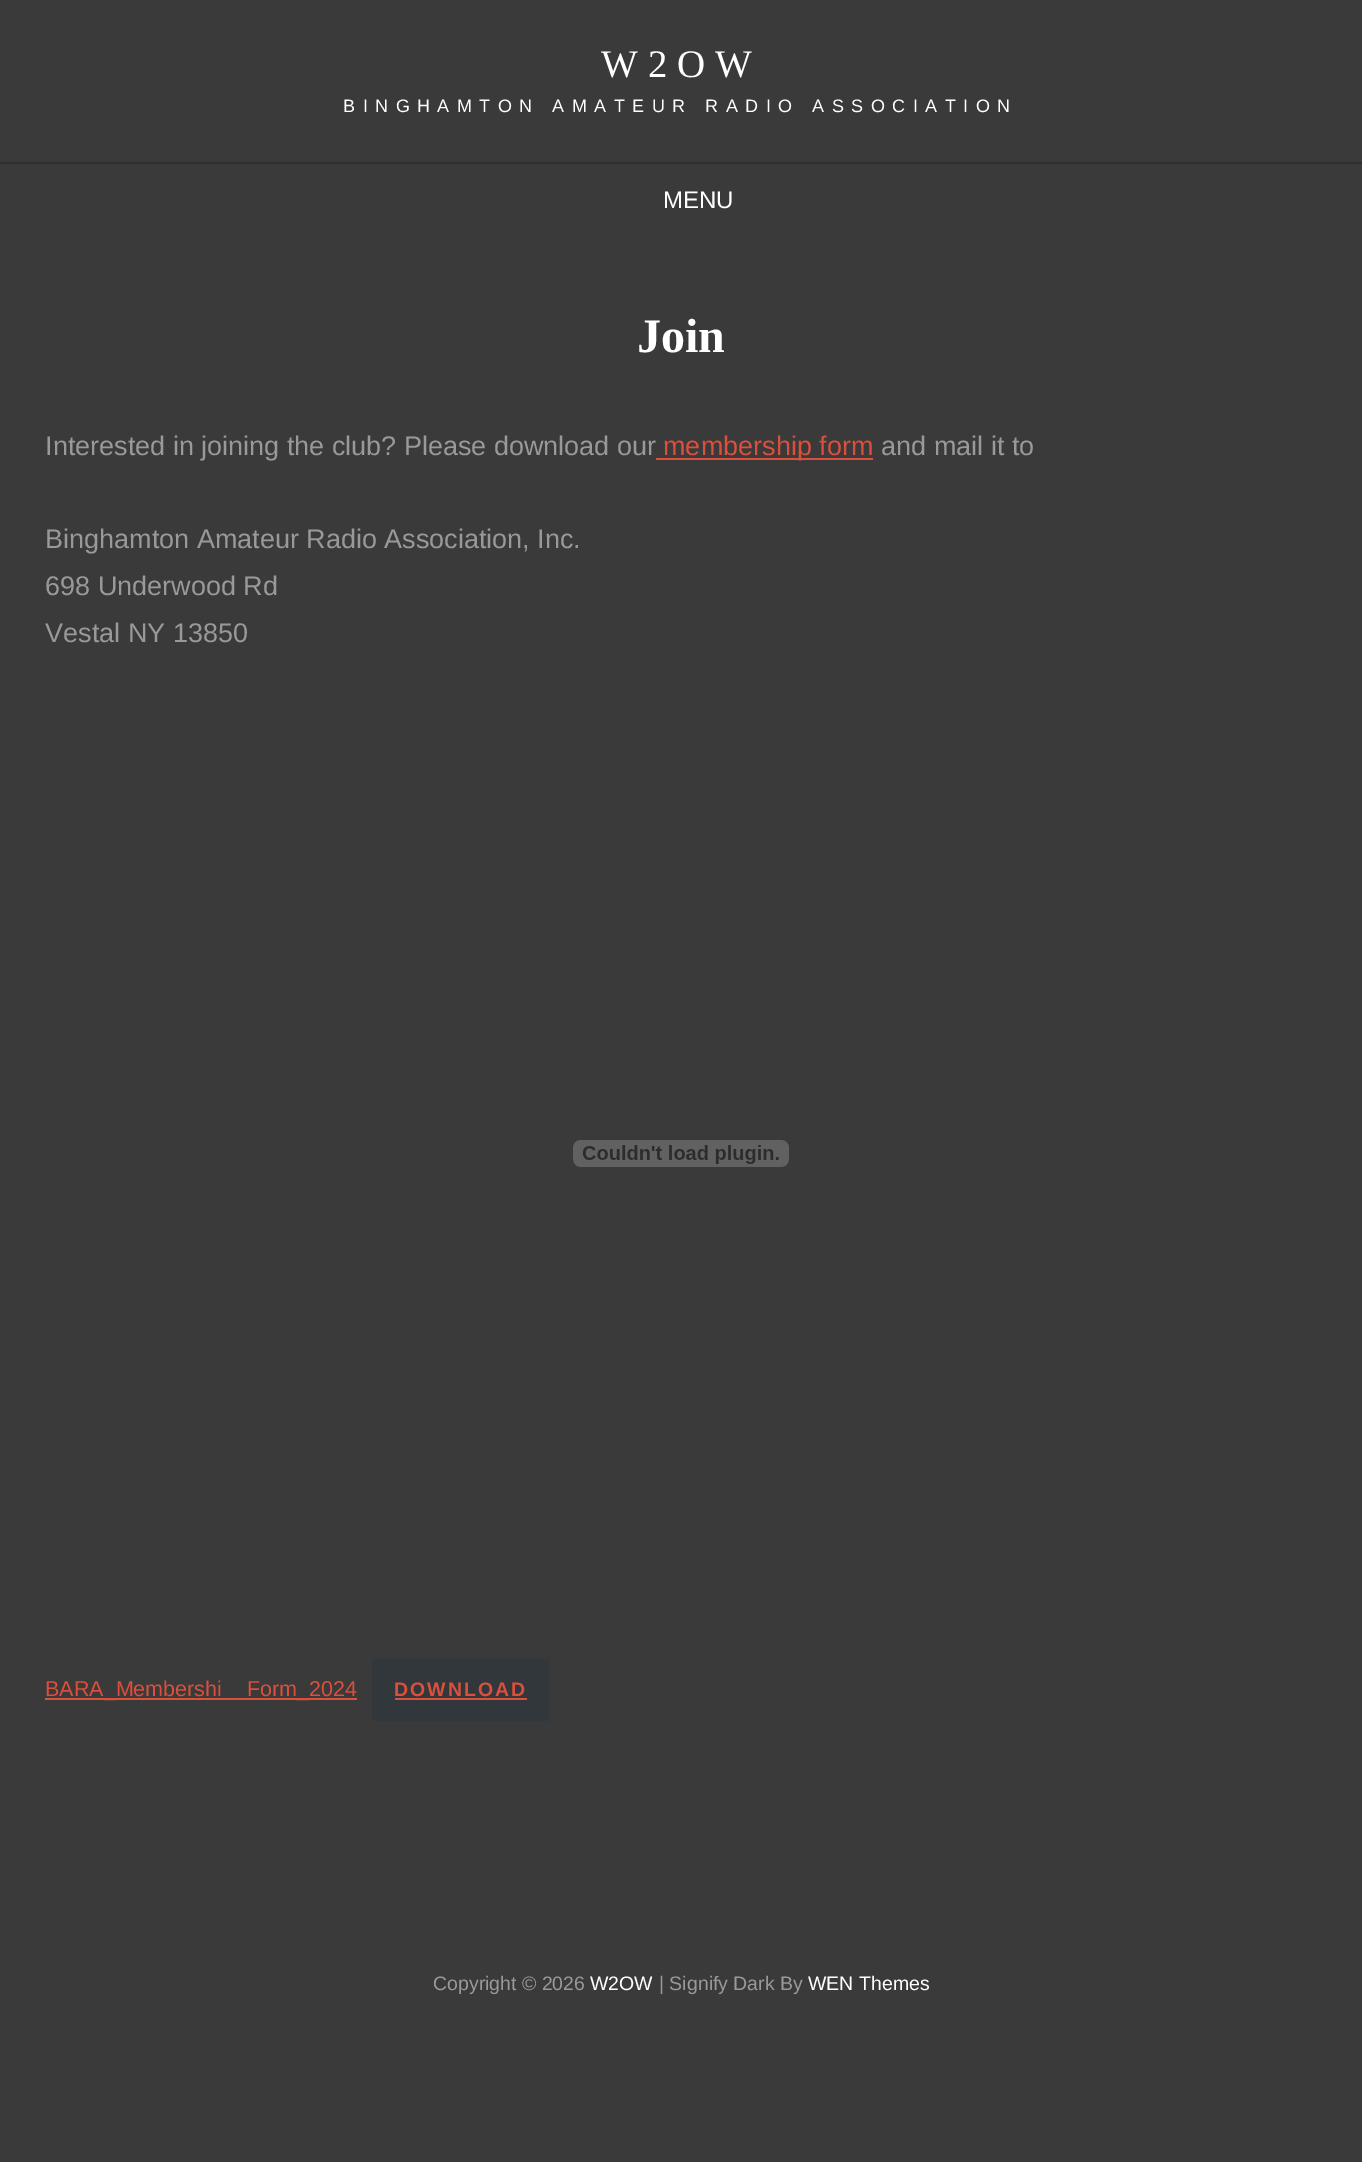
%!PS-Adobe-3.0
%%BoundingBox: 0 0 1362 2162
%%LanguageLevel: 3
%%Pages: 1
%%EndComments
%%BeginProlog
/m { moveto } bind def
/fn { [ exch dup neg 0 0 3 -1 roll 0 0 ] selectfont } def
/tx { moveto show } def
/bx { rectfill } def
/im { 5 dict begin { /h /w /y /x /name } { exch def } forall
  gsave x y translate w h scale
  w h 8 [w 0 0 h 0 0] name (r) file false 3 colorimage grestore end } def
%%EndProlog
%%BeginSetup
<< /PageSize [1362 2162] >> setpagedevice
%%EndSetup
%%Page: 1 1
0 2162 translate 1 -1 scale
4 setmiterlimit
0.227 setgray
0 0 1362 2162 bx
/LiberationSerif-Regular 39 fn
1 setgray
601 77 m 10 0 (W2OW) ashow
/LiberationSans-Regular 18 fn
343 112 m 7.5 0 (BINGHAMTON AMATEUR RADIO ASSOCIATION) ashow
0.184 setgray
0 162 1362 2 bx
/LiberationSans-Regular 24 fn
1 setgray
(MENU) 663 208 tx
/LiberationSerif-Bold 48 fn
(Join) 637 352 tx
/LiberationSans-Regular 27 fn
0.6 setgray
(Interested in joining the club? Please download our) 45 455 tx
0.859 0.31 0.239 setrgbcolor
656 458 217 2 bx
(membership form) 663 455 tx
0.6 setgray
(and mail it to) 881 455 tx
(Binghamton Amateur Radio Association, Inc.) 45 548 tx
(698 Underwood Rd) 45 595 tx
(Vestal NY 13850) 45 642 tx
(image0.raw) 573 1140 216 27 im
0.859 0.31 0.239 setrgbcolor
45 1698 312 2 bx
/LiberationSans-Regular 21.5 fn
(BARA_Membershi) 45 1696 tx
(Form_2024) 247 1696 tx
0.196 0.216 0.235 setrgbcolor
372 1659 177 62 bx
/LiberationSans-Bold 19.5 fn
0.859 0.31 0.239 setrgbcolor
394 1696 m 2 0 (DOWNLOAD) ashow
395 1698 132 2 bx
/LiberationSans-Regular 19.5 fn
0.6 setgray
(Copyright © 2026) 433 1990 tx
1 setgray
(W2OW) 590 1990 tx
0.6 setgray
(| Signify Dark By) 659 1990 tx
1 setgray
(WEN Themes) 808 1990 tx
showpage
%%EOF
